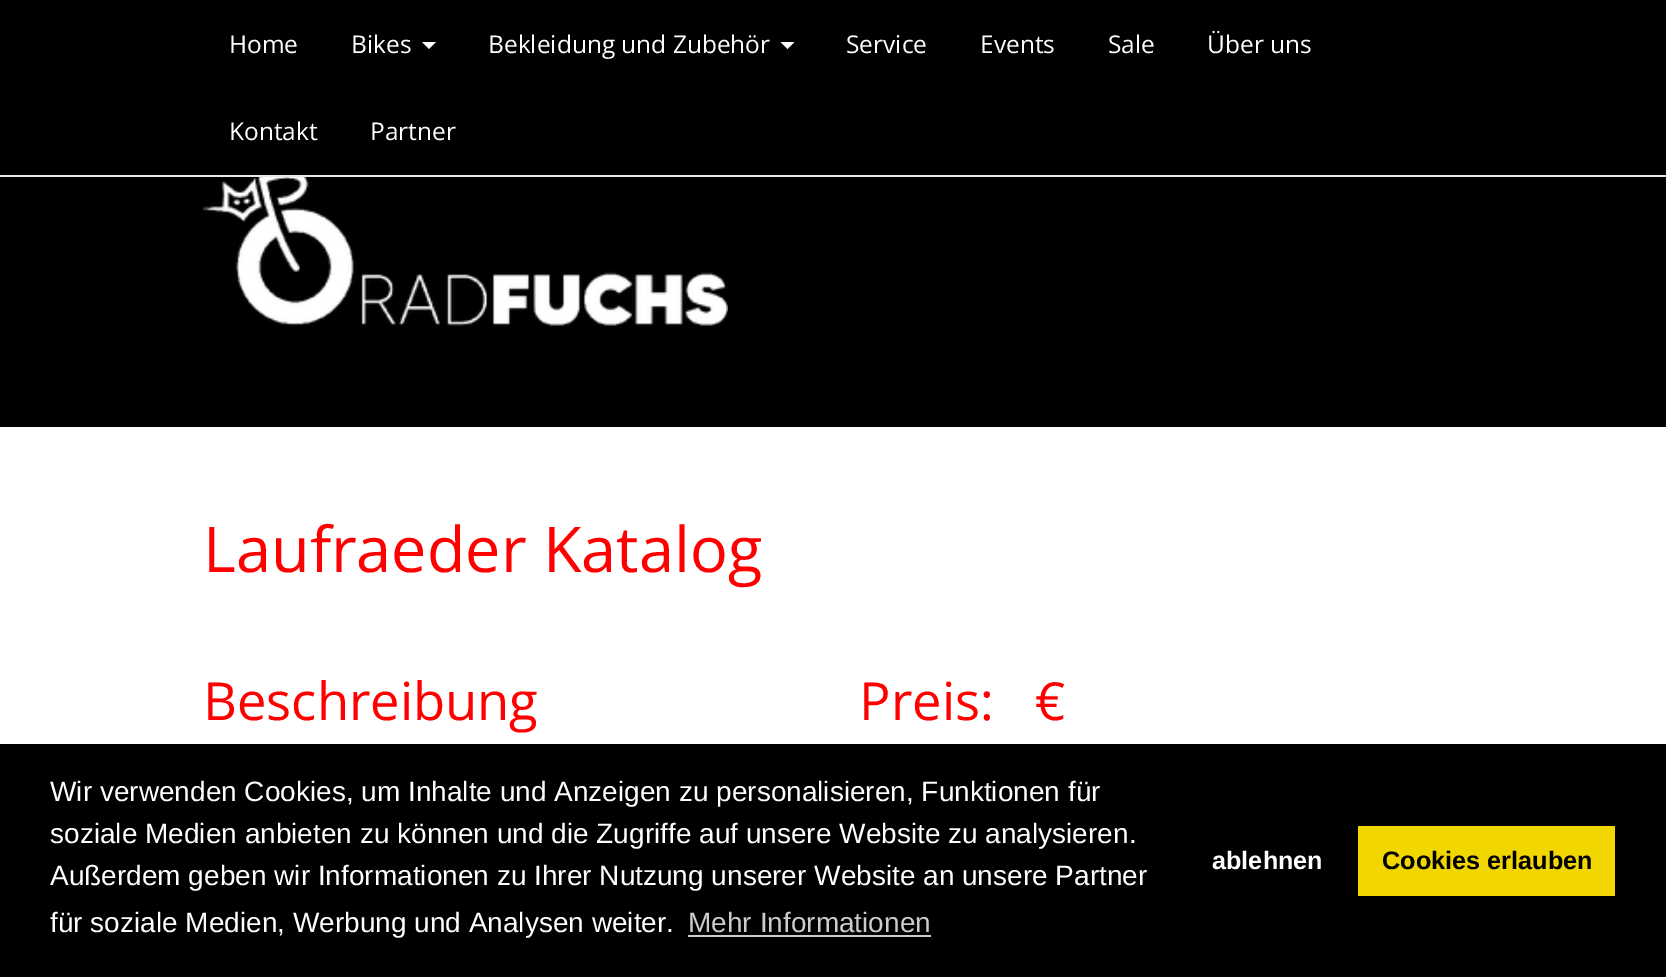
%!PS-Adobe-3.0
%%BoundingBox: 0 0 1666 977
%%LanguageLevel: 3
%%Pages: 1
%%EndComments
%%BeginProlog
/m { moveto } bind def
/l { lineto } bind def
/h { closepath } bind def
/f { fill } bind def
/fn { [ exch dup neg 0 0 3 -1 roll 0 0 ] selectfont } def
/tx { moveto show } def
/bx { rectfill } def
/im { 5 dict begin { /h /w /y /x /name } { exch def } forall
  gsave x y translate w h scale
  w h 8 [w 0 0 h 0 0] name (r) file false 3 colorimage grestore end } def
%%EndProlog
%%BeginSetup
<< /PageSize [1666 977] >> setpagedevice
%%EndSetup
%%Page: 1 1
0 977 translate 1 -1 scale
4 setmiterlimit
1 setgray
0 0 1666 977 bx
0 setgray
0 0 1666 175 bx
0.906 setgray
0 175 1666 2 bx
/OpenSans-Regular 24.5 fn
1 setgray
(Home) 229 53 tx
(Bikes) 351 53 tx
422 42 m 436 42 l 429 49 l h f
(Bekleidung und Zubehör) 488 53 tx
780.5 42 m 794.5 42 l 787.5 49 l h f
(Service) 846 53 tx
(Events) 980 53 tx
(Sale) 1108 53 tx
(Über uns) 1207 53 tx
(Kontakt) 229 140 tx
(Partner) 370 140 tx
0 setgray
0 177 1666 250 bx
(image0.raw) 203 177 525 149 im
/OpenSans-Regular 63 fn
1 0 0 setrgbcolor
(Laufraeder Katalog) 203 572 tx
/OpenSans-Regular 52.5 fn
(Beschreibung) 203 720 tx
(Preis:) 859 720 tx
(€) 1035 720 tx
0 setgray
0 744 1666 233 bx
/LiberationSans-Regular 28 fn
1 setgray
(Wir verwenden Cookies, um Inhalte und Anzeigen zu personalisieren, Funktionen für) 50 801 tx
(soziale Medien anbieten zu können und die Zugriffe auf unsere Website zu analysieren.) 50 843 tx
(Außerdem geben wir Informationen zu Ihrer Nutzung unserer Website an unsere Partner) 50 885 tx
(für soziale Medien, Werbung und Analysen weiter.) 50 932 tx
0.8 setgray
(Mehr Informationen) 688 932 tx
688 935 243 2 bx
/LiberationSans-Bold 25.25 fn
1 setgray
(ablehnen) 1212 869 tx
0.945 0.839 0 setrgbcolor
1358 826 257 70 bx
0 setgray
(Cookies erlauben) 1382 869 tx
showpage
%%EOF
